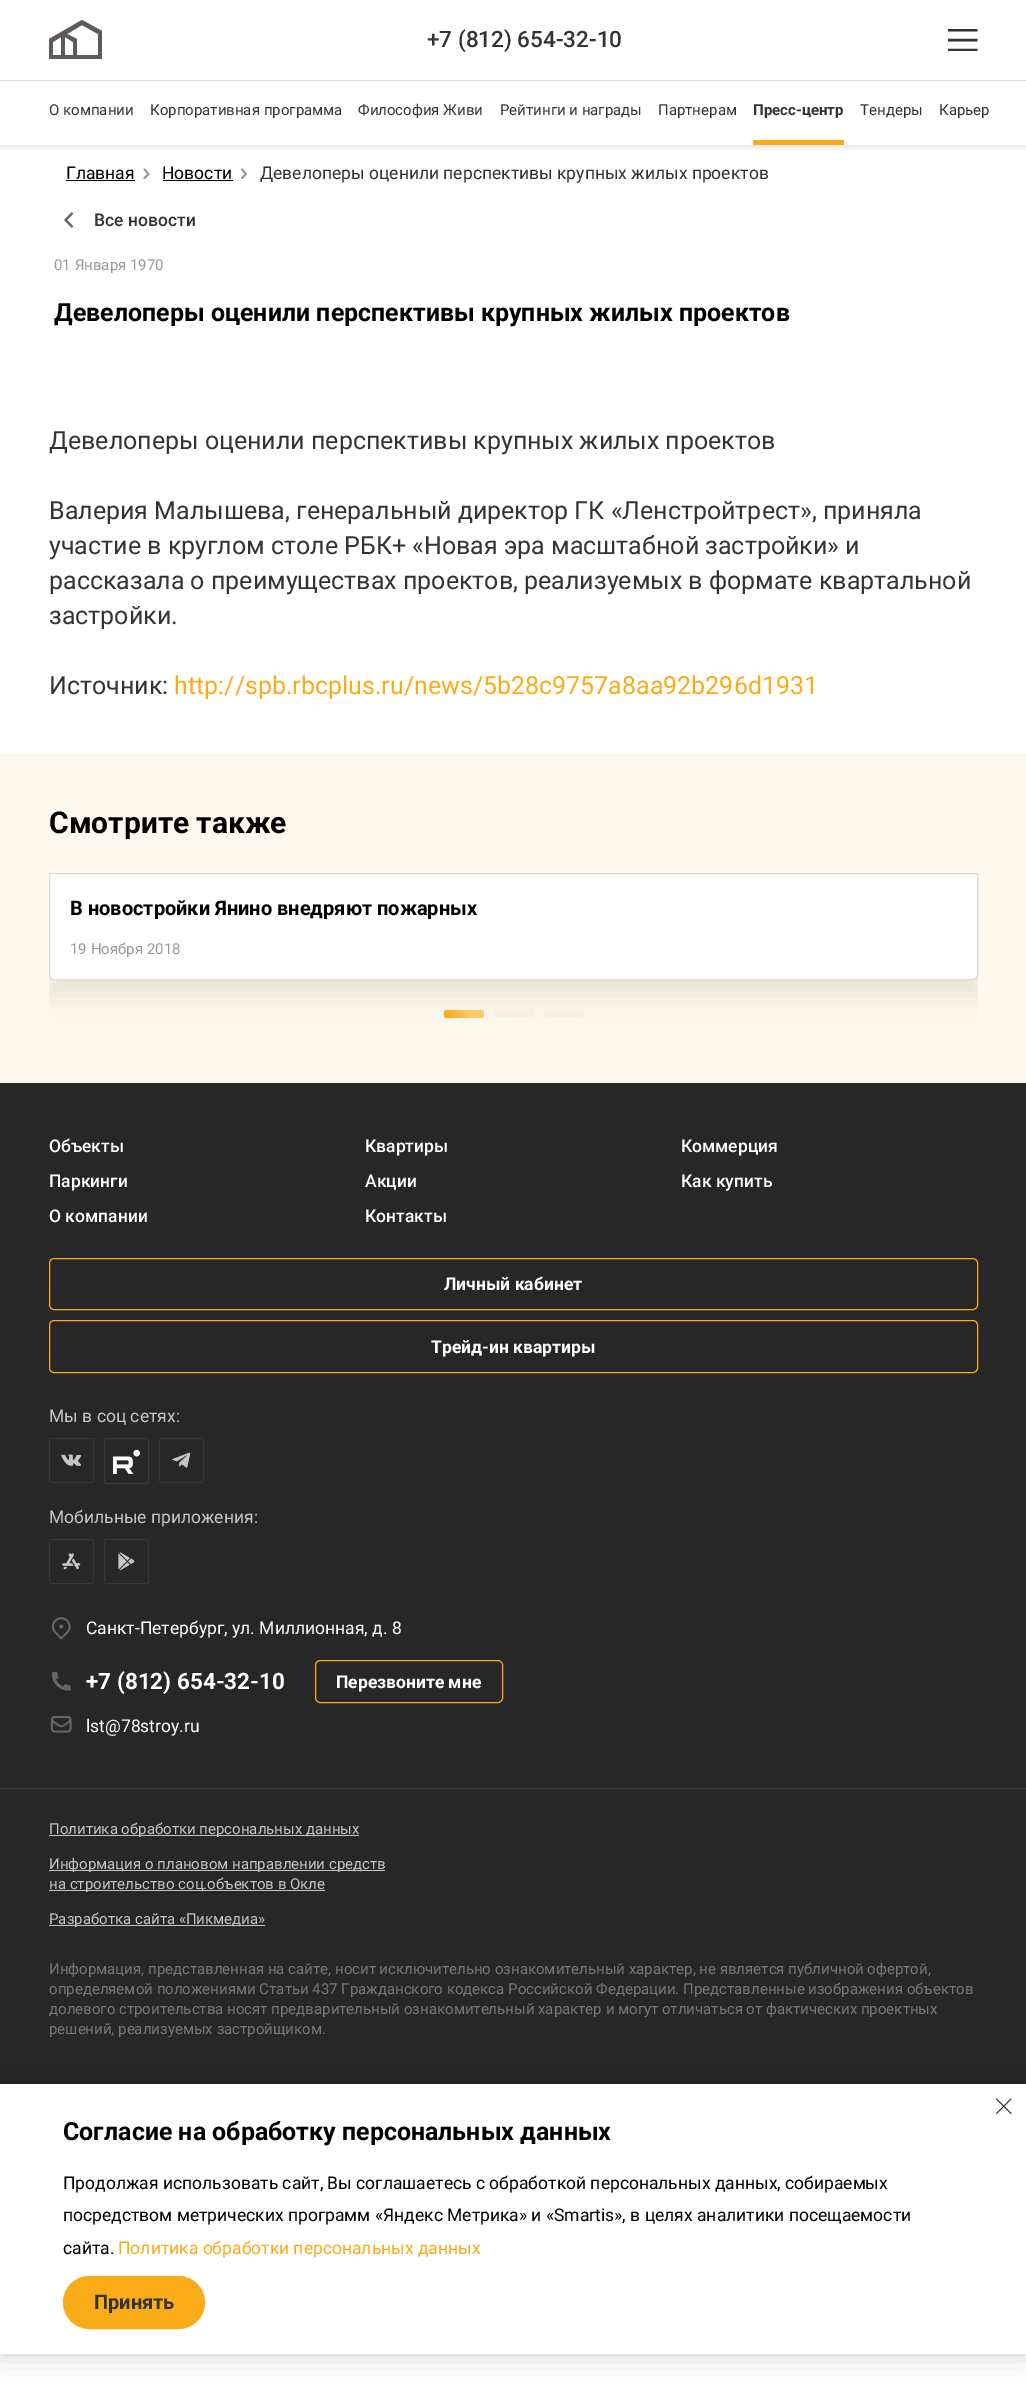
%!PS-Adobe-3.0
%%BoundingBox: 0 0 1026 2403
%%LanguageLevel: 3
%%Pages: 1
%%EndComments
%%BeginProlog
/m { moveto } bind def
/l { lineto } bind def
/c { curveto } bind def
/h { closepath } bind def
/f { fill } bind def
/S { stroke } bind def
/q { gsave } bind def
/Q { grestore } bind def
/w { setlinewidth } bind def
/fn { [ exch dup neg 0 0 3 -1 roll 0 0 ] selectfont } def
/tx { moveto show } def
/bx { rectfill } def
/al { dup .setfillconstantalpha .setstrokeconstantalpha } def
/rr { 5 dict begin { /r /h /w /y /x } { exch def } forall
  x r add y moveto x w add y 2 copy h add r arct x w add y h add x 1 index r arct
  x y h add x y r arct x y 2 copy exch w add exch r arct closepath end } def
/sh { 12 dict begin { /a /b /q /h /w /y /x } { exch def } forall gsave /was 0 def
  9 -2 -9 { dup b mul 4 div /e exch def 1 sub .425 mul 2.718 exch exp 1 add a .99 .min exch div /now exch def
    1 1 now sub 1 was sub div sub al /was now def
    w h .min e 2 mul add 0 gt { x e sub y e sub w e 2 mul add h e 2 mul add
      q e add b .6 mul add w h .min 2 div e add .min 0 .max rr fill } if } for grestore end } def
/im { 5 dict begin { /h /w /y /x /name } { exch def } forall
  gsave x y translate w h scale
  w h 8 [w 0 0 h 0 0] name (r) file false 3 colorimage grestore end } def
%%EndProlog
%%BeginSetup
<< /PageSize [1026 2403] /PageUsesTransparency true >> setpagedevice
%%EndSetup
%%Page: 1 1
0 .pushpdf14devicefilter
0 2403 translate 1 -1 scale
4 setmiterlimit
1 setgray
0 0 1026 2403 bx
q
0 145 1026 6 rectclip
0 setgray
0 83 1026 65 0 3 0.1 sh
Q
3 79 1020 1 bx
0.863 setgray
0 80 1026 1 bx
0.369 0.349 0.361 setrgbcolor
98 55 m 77 55 l 77 39 l 67 34 l 82 25 l 98 34 l h 53 55 m 53 42 l 61 37 l 61 55 l h 73 55 m 65 55 l 65 37 l 73 42 l h 102 59 m 102 31 l 82 20 l 49 39 l 49 59 l h f
/Roboto-Medium 22.5 fn
0.2 setgray
(+7 \(812\) 654-32-10) 427 47 tx
q
948 29 30 22 rectclip
2.5 w
947.5 30 m 977.5 30 l 947.5 40 m 977.5 40 l 947.5 50 m 977.5 50 l S
Q
/Roboto-Regular 15 fn
(О компании) 49 115 tx
(Корпоративная программа) 150 115 tx
(Философия Живи) 358 115 tx
(Рейтинги и награды) 500 115 tx
(Партнерам) 658 115 tx
0.98 0.671 0.094 setrgbcolor
753 140 91 5 bx
/Roboto-Bold 15 fn
0.2 setgray
(Пресс-центр) 753 115 tx
/Roboto-Regular 15 fn
(Тендеры) 860 115 tx
(Карьер) 939 115 tx
/Roboto-Regular 17.5 fn
0 setgray
(Главная) 66 179 tx
66 180 69 1 bx
0.6 setgray
1.9 w
1 setlinecap
1 setlinejoin
144.5 178 m 148.5 174 l 144.5 169.5 l S
0 setgray
(Новости) 162 179 tx
163 180 70 1 bx
0.6 setgray
242 178 m 246 174 l 242 169.5 l S
0.2 setgray
(Девелоперы оценили перспективы крупных жилых проектов) 260 179 tx
(image0.raw) 64 212 10 16 im
/Roboto-Medium 17.5 fn
(Все новости) 94 226 tx
/Roboto-Regular 15 fn
0.6 setgray
(01 Января 1970) 54 270 tx
/Roboto-Bold 25 fn
0 setgray
(Девелоперы оценили перспективы крупных жилых проектов) 54 321 tx
/Roboto-Regular 25 fn
0.2 setgray
(Девелоперы оценили перспективы крупных жилых проектов) 49 449 tx
(Валерия Малышева, генеральный директор ГК «Ленстройтрест», приняла) 49 519 tx
(участие в круглом столе РБК+ «Новая эра масштабной застройки» и) 49 554 tx
(рассказала о преимуществах проектов, реализуемых в формате квартальной) 49 589 tx
(застройки.) 49 624 tx
(Источник:) 49 694 tx
0.98 0.671 0.094 setrgbcolor
(http://spb.rbcplus.ru/news/5b28c9757a8aa92b296d1931) 174 694 tx
0.988 0.973 0.922 setrgbcolor
0 753 1026 330 bx
/Roboto-Bold 30 fn
0 setgray
(Смотрите также) 49 833 tx
q
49 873 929 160 rectclip
0.149 0.145 0.129 setrgbcolor
49 888 929 107 0 12.5 0.1 sh
Q
1 setgray
49.5 873.5 m 977.5 873.5 l 977.5 975 l 977.5 977.5 975.5 979.5 973 979.5 c 54 979.5 l 51.5 979.5 49.5 977.5 49.5 975 c h q f Q
0.863 setgray
1 w
0 setlinecap
0 setlinejoin
S
/Roboto-Bold 20 fn
0 setgray
(В новостройки Янино внедряют пожарных) 70 915 tx
/Roboto-Regular 15 fn
0.6 setgray
(19 Ноября 2018) 70 954 tx
q 444 1010 40 8 4 rr clip newpath
<< /ShadingType 2 /ColorSpace /DeviceRGB /Coords [482 1005 446 1022] /Extend [true true] /Function << /FunctionType 3 /Domain [0 1] /Functions [<< /FunctionType 2 /Domain [0 1] /C0 [1 0.796 0.416] /C1 [1 0.796 0.416] /N 1 >> << /FunctionType 2 /Domain [0 1] /C0 [1 0.796 0.416] /C1 [0.98 0.671 0.094] /N 1 >> << /FunctionType 2 /Domain [0 1] /C0 [0.98 0.671 0.094] /C1 [0.98 0.671 0.094] /N 1 >>] /Bounds [0.34 0.94] /Encode [0 1 0 1 0 1] >> >> shfill Q
0.961 0.945 0.89 setrgbcolor
494 1010 40 8 4 rr f
544 1010 40 8 4 rr f
0.153 setgray
0 1083 1026 1001 bx
/Roboto-Medium 17.5 fn
1 setgray
(Объекты) 49 1152 tx
(Квартиры) 365 1152 tx
(Коммерция) 681 1152 tx
(Паркинги) 49 1187 tx
(Акции) 365 1187 tx
(Как купить) 681 1187 tx
(О компании) 49 1222 tx
(Контакты) 365 1222 tx
0.98 0.671 0.094 setrgbcolor
49.5 1258.5 928 51 4.5 rr S
/Roboto-Bold 17.5 fn
1 setgray
(Личный кабинет) 444 1290 tx
0.98 0.671 0.094 setrgbcolor
49.5 1320.5 928 52 4.5 rr S
1 setgray
(Трейд-ин квартиры) 431 1353 tx
/Roboto-Regular 17.5 fn
0.776 setgray
(Мы в соц сетях:) 49 1422 tx
(image1.raw) 49 1438 45 45 im
0.216 setgray
104.5 1438.5 44 45 2 rr S
(image2.raw) 113 1449 27 25 im
(image3.raw) 159 1438 45 45 im
0.776 setgray
(Мобильные приложения:) 49 1523 tx
(image4.raw) 49 1539 45 45 im
(image5.raw) 104 1539 45 45 im
(image6.raw) 51 1617 20 23 im
1 setgray
(Санкт-Петербург, ул. Миллионная, д. 8) 86 1634 tx
(image7.raw) 51 1672 20 19 im
/Roboto-Bold 22.5 fn
(+7 \(812\) 654-32-10) 86 1689 tx
0.98 0.671 0.094 setrgbcolor
315.5 1660.5 187 42 4.5 rr S
/Roboto-Bold 17.5 fn
1 setgray
(Перезвоните мне) 336 1688 tx
(image8.raw) 50 1716 22 17 im
/Roboto-Regular 17.5 fn
(lst@78stroy.ru) 86 1732 tx
0.239 setgray
0 1788 1026 1 bx
0.776 setgray
49 1835 310 1 bx
/Roboto-Regular 15 fn
(Политика обработки персональных данных) 49 1834 tx
49 1870 336 1 bx
(Информация о плановом направлении средств) 49 1869 tx
49 1890 276 1 bx
(на строительство соц.объектов в Окле) 49 1889 tx
49 1925 216 1 bx
(Разработка сайта «Пикмедиа») 49 1924 tx
0.467 setgray
(Информация, представленная на сайте, носит исключительно ознакомительный характер, не является публичной офертой,) 49 1974 tx
(определяемой положениями Статьи 437 Гражданского кодекса Российской Федерации. Представленные изображения объектов) 49 1994 tx
(долевого строительства носят предварительный ознакомительный характер и могут отличаться от фактических проектных) 49 2014 tx
(решений, реализуемых застройщиком.) 49 2034 tx
0 setgray
0 2084 1026 270 0 12.5 0.2 sh
1 setgray
0 2084 1026 270 bx
(image9.raw) 995 2098 17 17 im
/Roboto-Bold 25 fn
0 setgray
(Согласие на обработку персональных данных) 63 2140 tx
/Roboto-Regular 17.5 fn
(Продолжая использовать сайт, Вы соглашаетесь с обработкой персональных данных, собираемых) 63 2189 tx
(посредством метрических программ «Яндекс Метрика» и «Smartis», в целях аналитики посещаемости) 63 2221 tx
(сайта.) 63 2254 tx
0.98 0.671 0.094 setrgbcolor
(Политика обработки персональных данных) 118 2254 tx
63.5 2276.5 141 52 26 rr q f Q
S
/Roboto-Bold 20 fn
0.2 setgray
(Принять) 94 2309 tx
.poppdf14devicefilter showpage
%%EOF
